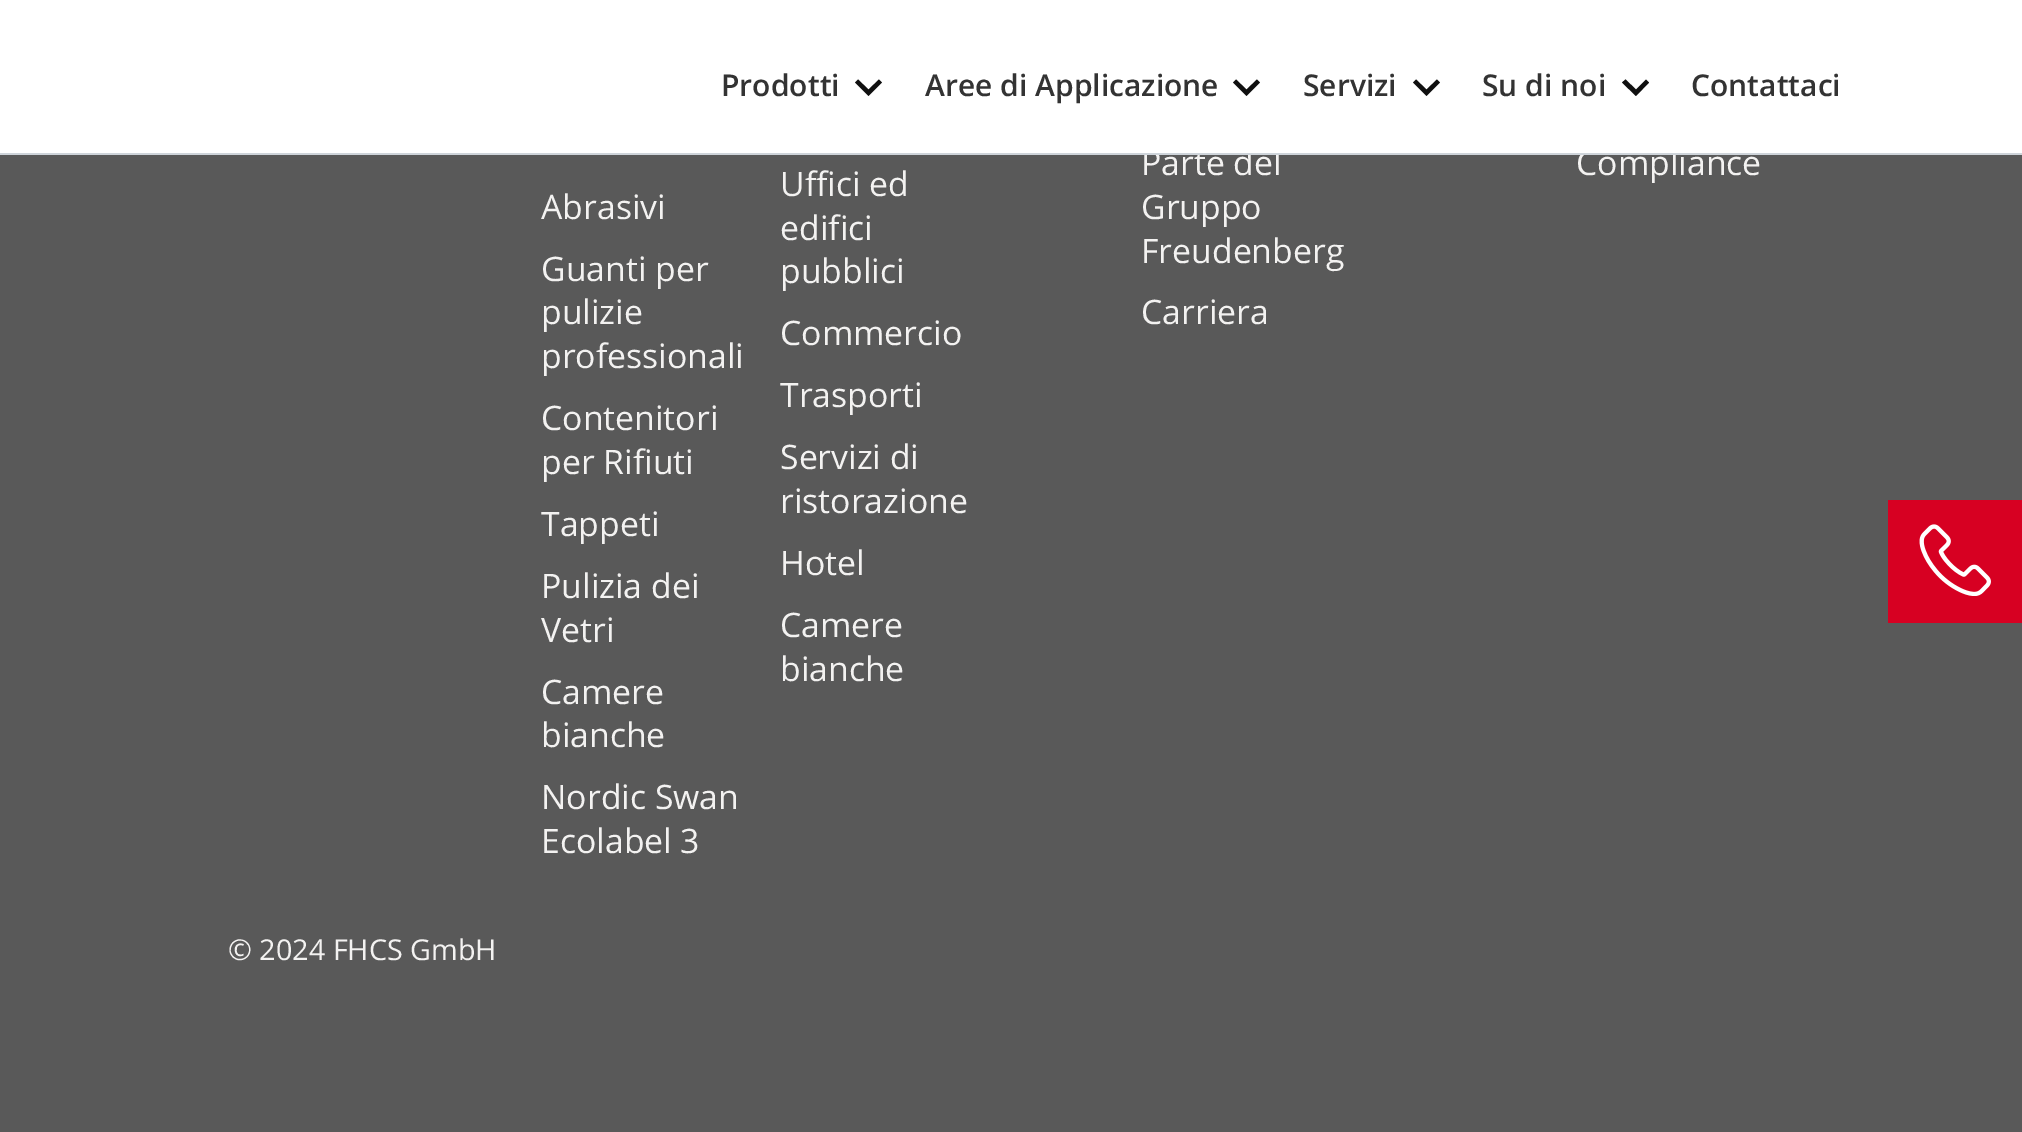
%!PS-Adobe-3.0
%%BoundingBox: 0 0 2022 1132
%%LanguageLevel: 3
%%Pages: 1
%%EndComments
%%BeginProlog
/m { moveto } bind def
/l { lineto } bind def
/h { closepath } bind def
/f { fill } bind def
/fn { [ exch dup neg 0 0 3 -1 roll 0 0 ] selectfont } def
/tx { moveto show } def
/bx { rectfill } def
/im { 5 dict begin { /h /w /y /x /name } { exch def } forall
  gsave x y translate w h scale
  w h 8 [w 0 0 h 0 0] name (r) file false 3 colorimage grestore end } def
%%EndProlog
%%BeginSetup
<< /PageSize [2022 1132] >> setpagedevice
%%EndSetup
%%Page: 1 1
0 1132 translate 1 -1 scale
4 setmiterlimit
0.349 setgray
0 0 2022 1132 bx
/OpenSans-Regular 33.75 fn
0.953 0.949 0.945 setrgbcolor
(Parte del) 1141 175 tx
(Compliance) 1576 175 tx
1 setgray
0 0 2022 153 bx
0.808 0.831 0.855 setrgbcolor
0 153 2022 2 bx
/OpenSans-SemiBold 30 fn
0.2 setgray
(Prodotti) 721 96 tx
0.063 setgray
858 79.5 m 868.5 89.5 l 879 79.5 l 882 82.5 l 868.5 96 l 855 82.5 l h f
0.2 setgray
(Aree di Applicazione) 925 96 tx
0.063 setgray
1236 79.5 m 1246.5 89.5 l 1257 79.5 l 1260 82.5 l 1246.5 96 l 1233 82.5 l h f
0.2 setgray
(Servizi) 1303 96 tx
0.063 setgray
1416 79.5 m 1426.5 89.5 l 1437 79.5 l 1440 82.5 l 1426.5 96 l 1413 82.5 l h f
0.2 setgray
(Su di noi) 1482 96 tx
0.063 setgray
1625.5 79.5 m 1636 89.5 l 1646 79.5 l 1649 82.5 l 1636 96 l 1622 82.5 l h f
0.2 setgray
(Contattaci) 1691 96 tx
/OpenSans-Regular 33.75 fn
0.953 0.949 0.945 setrgbcolor
(Gruppo) 1141 219 tx
(Freudenberg) 1141 263 tx
(Carriera) 1141 324 tx
(Abrasivi) 541 219 tx
(Guanti per) 541 281 tx
(pulizie) 541 324 tx
(professionali) 541 368 tx
(Contenitori) 541 430 tx
(per Rifiuti) 541 474 tx
(Tappeti) 541 536 tx
(Pulizia dei) 541 598 tx
(Vetri) 541 642 tx
(Camere) 541 704 tx
(bianche) 541 747 tx
(Nordic Swan) 541 809 tx
(Ecolabel 3) 541 853 tx
(Uffici ed) 780 196 tx
(edifici) 780 240 tx
(pubblici) 780 283 tx
(Commercio) 780 345 tx
(Trasporti) 780 407 tx
(Servizi di) 780 469 tx
(ristorazione) 780 513 tx
(Hotel) 780 575 tx
(Camere) 780 637 tx
(bianche) 780 681 tx
/OpenSans-Regular 28.75 fn
(© 2024 FHCS GmbH) 228 960 tx
0.843 0 0.133 setrgbcolor
1888 500 134 123 bx
(image0.raw) 1919 524 72 72 im
showpage
%%EOF
